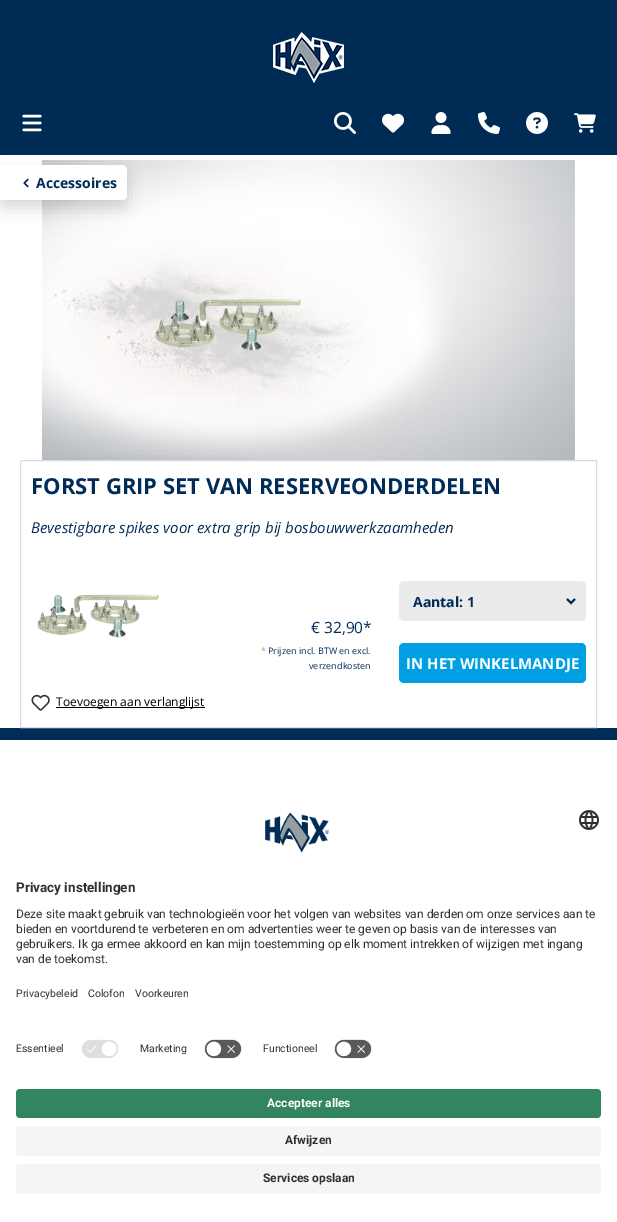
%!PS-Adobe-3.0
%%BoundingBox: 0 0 617 1222
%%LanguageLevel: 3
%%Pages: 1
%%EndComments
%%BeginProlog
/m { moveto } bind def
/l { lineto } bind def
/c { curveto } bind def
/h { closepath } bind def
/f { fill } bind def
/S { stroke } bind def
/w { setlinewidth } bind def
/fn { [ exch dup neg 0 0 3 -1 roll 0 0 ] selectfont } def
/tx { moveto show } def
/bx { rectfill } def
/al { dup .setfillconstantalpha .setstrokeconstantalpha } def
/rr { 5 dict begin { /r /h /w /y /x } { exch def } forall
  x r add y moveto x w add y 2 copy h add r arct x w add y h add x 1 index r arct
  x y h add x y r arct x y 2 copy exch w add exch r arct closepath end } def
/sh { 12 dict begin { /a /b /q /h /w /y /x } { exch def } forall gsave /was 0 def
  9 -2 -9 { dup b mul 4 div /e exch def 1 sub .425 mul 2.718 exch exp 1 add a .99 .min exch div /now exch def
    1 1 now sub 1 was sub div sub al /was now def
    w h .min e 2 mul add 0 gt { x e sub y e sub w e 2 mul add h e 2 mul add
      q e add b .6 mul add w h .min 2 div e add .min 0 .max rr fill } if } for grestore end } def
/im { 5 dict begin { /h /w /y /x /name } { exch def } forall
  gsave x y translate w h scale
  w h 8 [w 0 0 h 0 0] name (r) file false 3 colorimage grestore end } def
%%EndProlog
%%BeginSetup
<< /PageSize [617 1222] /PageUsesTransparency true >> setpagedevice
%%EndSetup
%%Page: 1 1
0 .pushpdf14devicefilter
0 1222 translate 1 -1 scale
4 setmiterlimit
1 setgray
0 0 617 1222 bx
(image9.raw) 41 160 534 300 im
0 setgray
0 173 127 35 5 8 0.15 sh
0 0.169 0.333 setrgbcolor
0 0 617 155 bx
(image0.raw) 273 32 71 51 im
(image1.raw) 22 114 20 18 im
(image2.raw) 334 112 22 22 im
(image3.raw) 382 113 22 20 im
(image4.raw) 431 112 20 22 im
(image5.raw) 478 112 22 22 im
(image6.raw) 526 112 22 22 im
(image7.raw) 574 113 22 20 im
1 setgray
0 165 m 122 165 l 125 165 127 167 127 170 c 127 195 l 127 198 125 200 122 200 c 0 200 l h f
(image8.raw) 23 178 6 10 im
/OpenSans-Bold 14 fn
0.004 0.173 0.341 setrgbcolor
(Accessoires) 36 188 tx
0 728 617 12 bx
0.855 0.855 0.898 setrgbcolor
20.5 460.5 576 267 rectstroke
/OpenSans-Bold 22 fn
0.004 0.173 0.341 setrgbcolor
(FORST GRIP SET VAN RESERVEONDERDELEN) 31 494 tx
/OpenSans-Italic 15 fn
(Bevestigbare spikes voor extra grip bij bosbouwwerkzaamheden) 31 533 tx
(image10.raw) 37 594 122 44 im
/OpenSans-Regular 15.5 fn
(€ 32,90*) 311 633 tx
/OpenSans-Regular 9 fn
0.62 setgray
(*) 261 654 tx
0.004 0.173 0.341 setrgbcolor
(Prijzen incl. BTW en excl.) 268 654 tx
(verzendkosten) 309 669 tx
0.922 setgray
399 581 187 40 5 rr f
0 0.169 0.333 setrgbcolor
2 w
567 599 m 571 603 l 575 599 l S
/OpenSans-Bold 14 fn
0.004 0.173 0.341 setrgbcolor
(Aantal: 1) 413 607 tx
0 0.62 0.89 setrgbcolor
399 643 187 40 5 rr f
/OpenSans-Bold 15 fn
1 setgray
(IN HET WINKELMANDJE) 406 669 tx
(image11.raw) 31 694 19 17 im
0 setgray
56 707 149 1 bx
/OpenSans-Regular 12 fn
(Toevoegen aan verlanglijst) 56 706 tx
(image12.raw) 264 812 66 41 im
(image13.raw) 579 810 20 20 im
/Roboto-Bold 13.5 fn
0.188 setgray
(Privacy instellingen) 16 892 tx
/Roboto-Regular 12 fn
(Deze site maakt gebruik van technologieën voor het volgen van websites van derden om onze services aan te) 16 918 tx
(bieden en voortdurend te verbeteren en om advertenties weer te geven op basis van de interesses van) 16 933 tx
(gebruikers. Ik ga ermee akkoord en kan mijn toestemming op elk moment intrekken of wijzigen met ingang) 16 948 tx
(van de toekomst.) 16 963 tx
/Roboto-Regular 10.5 fn
(Privacybeleid) 16 997 tx
(Colofon) 88 997 tx
(Voorkeuren) 135 997 tx
(Essentieel) 16 1052 tx
(image14.raw) 81 1039 38 19 im
(Marketing) 140 1052 tx
(image15.raw) 204 1039 38 20 im
(Functioneel) 263 1052 tx
(image15.raw) 334 1039 38 20 im
0.196 0.522 0.369 setrgbcolor
16 1089 585 29 4 rr f
/Roboto-Bold 12 fn
1 setgray
(Accepteer alles) 267 1107 tx
0.961 setgray
16 1126 585 30 4 rr f
0.188 setgray
(Afwijzen) 285 1144 tx
0.961 setgray
16 1164 585 30 4 rr f
0.188 setgray
(Services opslaan) 263 1182 tx
.poppdf14devicefilter showpage
%%EOF
